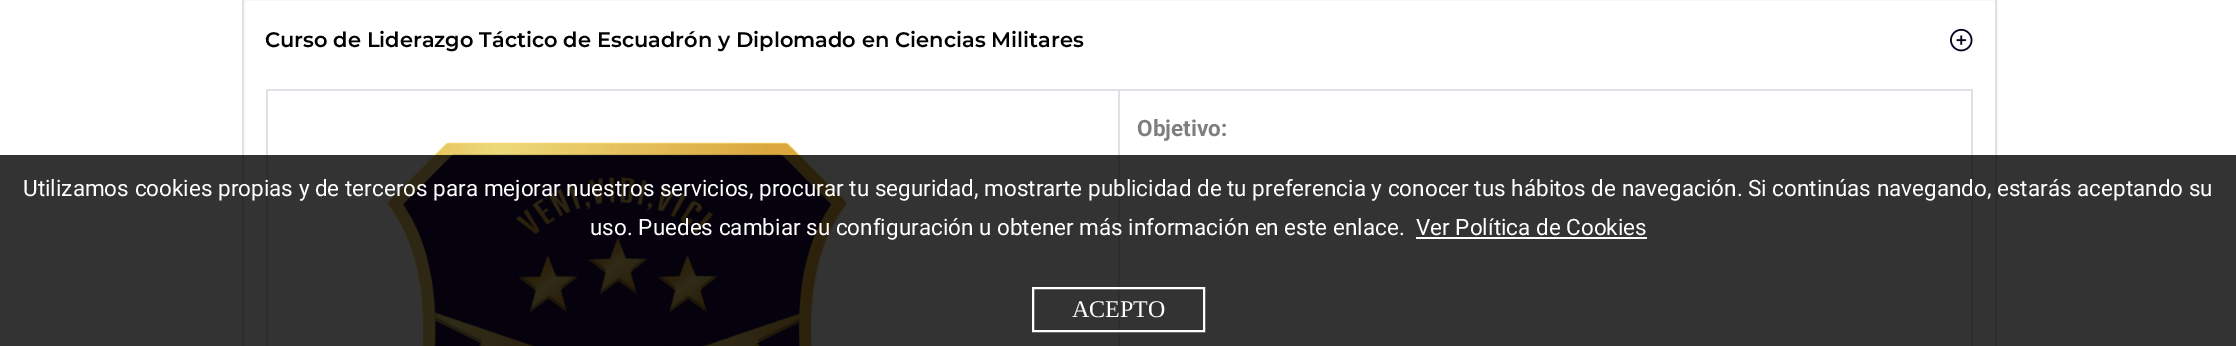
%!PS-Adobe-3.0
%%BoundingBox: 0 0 2236 346
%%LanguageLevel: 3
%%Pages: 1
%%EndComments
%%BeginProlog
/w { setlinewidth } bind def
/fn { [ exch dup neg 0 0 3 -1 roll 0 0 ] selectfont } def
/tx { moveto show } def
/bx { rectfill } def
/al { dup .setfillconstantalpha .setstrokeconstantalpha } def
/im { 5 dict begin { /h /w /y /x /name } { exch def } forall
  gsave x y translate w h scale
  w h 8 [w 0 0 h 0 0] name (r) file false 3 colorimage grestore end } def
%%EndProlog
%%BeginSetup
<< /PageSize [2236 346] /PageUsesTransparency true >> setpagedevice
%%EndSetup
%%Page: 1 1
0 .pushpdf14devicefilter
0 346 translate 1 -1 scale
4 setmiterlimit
1 setgray
0 0 2236 346 bx
0.871 0.886 0.902 setrgbcolor
2 w
243 -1 1753 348 rectstroke
/Montserrat-SemiBold 21 fn
0 setgray
(Curso de Liderazgo Táctico de Escuadrón y Diplomado en Ciencias Militares) 265 47 tx
(image0.raw) 1950 28 23 24 im
0.871 0.886 0.902 setrgbcolor
266 89 1707 2 bx
1971 89 2 257 bx
266 89 2 257 bx
1118 89 2 257 bx
(image1.raw) 387 142 460 204 im
/Roboto-Bold 22.5 fn
0.494 setgray
(Objetivo:) 1137 136 tx
0.8 al
0 setgray
0 155 2236 191 bx
/Roboto-Regular 22.5 fn
1 al
1 setgray
(Utilizamos cookies propias y de terceros para mejorar nuestros servicios, procurar tu seguridad, mostrarte publicidad de tu preferencia y conocer tus hábitos de navegación. Si continúas navegando, estarás aceptando su) 23 196 tx
(uso. Puedes cambiar su configuración u obtener más información en este enlace.) 590 235 tx
(Ver Política de Cookies) 1416 235 tx
1416 237 231 2 bx
1033 288 171 43 rectstroke
/LiberationSerif-Regular 24 fn
(ACEPTO) 1072 317 tx
.poppdf14devicefilter showpage
%%EOF
